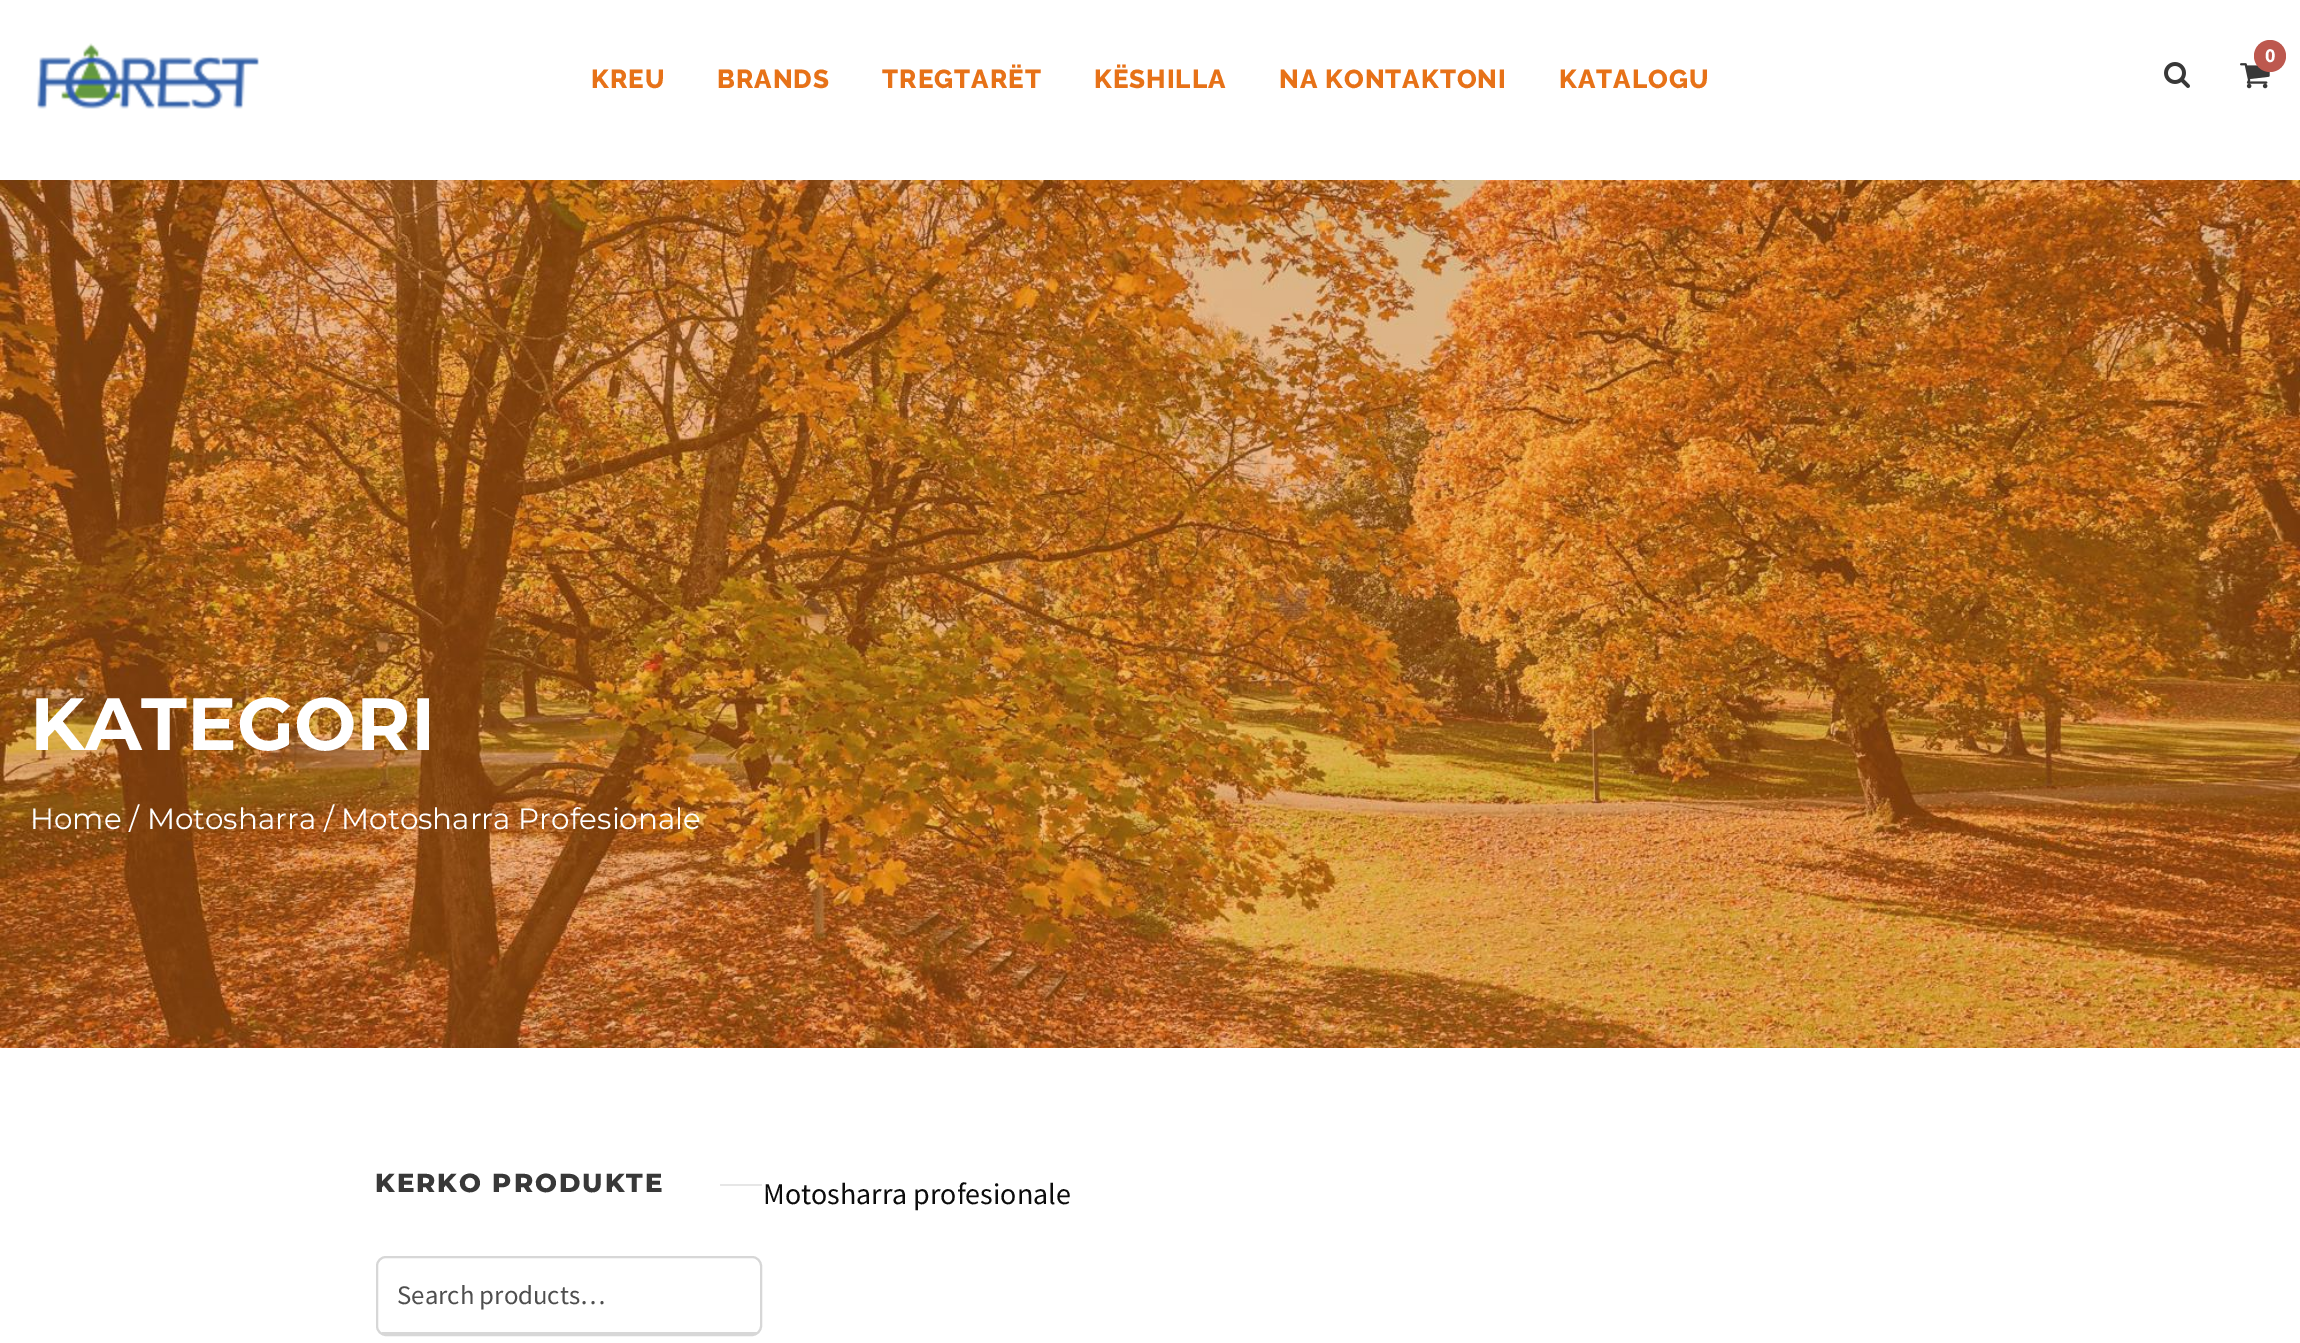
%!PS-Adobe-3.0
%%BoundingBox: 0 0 2300 1343
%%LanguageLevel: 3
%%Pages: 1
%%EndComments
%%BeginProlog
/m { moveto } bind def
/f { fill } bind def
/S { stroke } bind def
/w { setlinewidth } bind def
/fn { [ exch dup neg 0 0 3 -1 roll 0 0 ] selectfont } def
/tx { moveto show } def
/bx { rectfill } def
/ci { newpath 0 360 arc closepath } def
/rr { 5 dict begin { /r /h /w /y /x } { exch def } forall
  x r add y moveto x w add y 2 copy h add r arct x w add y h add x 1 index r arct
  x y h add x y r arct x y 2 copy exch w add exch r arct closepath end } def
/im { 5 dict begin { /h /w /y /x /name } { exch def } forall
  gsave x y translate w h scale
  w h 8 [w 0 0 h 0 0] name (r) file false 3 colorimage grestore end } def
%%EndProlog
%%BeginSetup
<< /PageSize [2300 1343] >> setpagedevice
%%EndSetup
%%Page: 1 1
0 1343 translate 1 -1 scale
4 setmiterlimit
1 setgray
0 0 2300 1343 bx
(image0.raw) 37 43 222 66 im
(image1.raw) 2240 63 30 26 im
0.741 0.345 0.306 setrgbcolor
2270 56 16 ci f
/SourceSansPro-Bold 20 fn
1 setgray
(0) 2265 62 tx
(image2.raw) 2164 62 26 26 im
/Raleway-ExtraBold 26 fn
0.906 0.447 0.094 setrgbcolor
591 88 m 1 0 (KREU) ashow
717 88 m 1 0 (BRANDS) ashow
882 88 m 1 0 (TREGTARËT) ashow
1094 88 m 1 0 (KËSHILLA) ashow
1279 88 m 1 0 (NA KONTAKTONI) ashow
1559 88 m 1 0 (KATALOGU) ashow
(image3.raw) 0 180 2300 868 im
/Montserrat-Bold 74 fn
1 setgray
(KATEGORI) 30 750 tx
/Montserrat-Regular 29.4 fn
(Home / Motosharra / Motosharra Profesionale) 30 829 tx
/Montserrat-ExtraBold 26 fn
0.22 setgray
375 1192 m 2 0 (KERKO PRODUKTE) ashow
0.902 setgray
720 1184 42 2 bx
0.843 setgray
2 w
377 1257 384 78 9 rr S
382 1332 376 2 bx
/SourceSansPro-Regular 26.75 fn
0.306 setgray
(Search products…) 397 1304 tx
/SourceSansPro-Regular 30 fn
0.047 setgray
(Motosharra profesionale) 763 1204 tx
showpage
%%EOF
